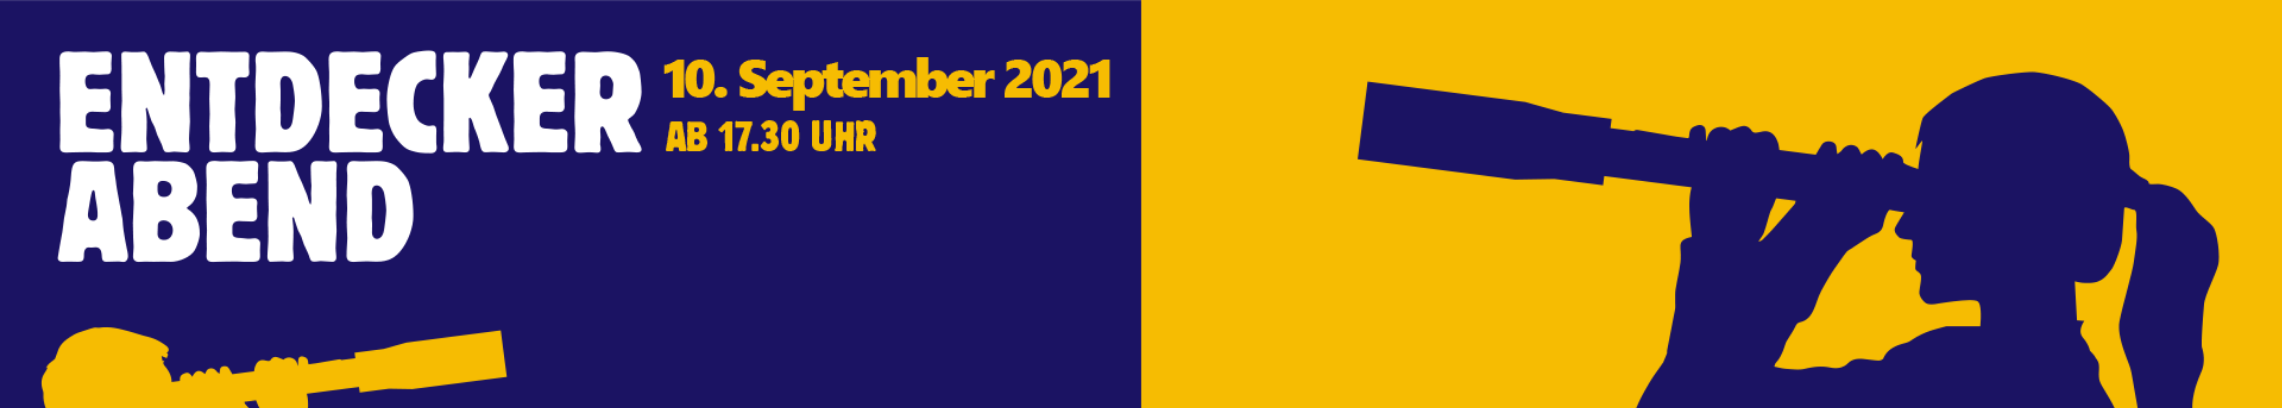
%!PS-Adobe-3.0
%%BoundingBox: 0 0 2282 408
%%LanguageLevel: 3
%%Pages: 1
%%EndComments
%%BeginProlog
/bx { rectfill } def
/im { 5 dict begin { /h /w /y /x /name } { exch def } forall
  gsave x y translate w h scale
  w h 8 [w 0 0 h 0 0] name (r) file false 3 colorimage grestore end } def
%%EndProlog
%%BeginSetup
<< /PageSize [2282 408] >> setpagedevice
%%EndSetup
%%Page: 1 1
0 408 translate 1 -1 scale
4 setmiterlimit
1 setgray
0 0 2282 408 bx
(image0.raw) 0 0 2282 408 im
showpage
%%EOF
